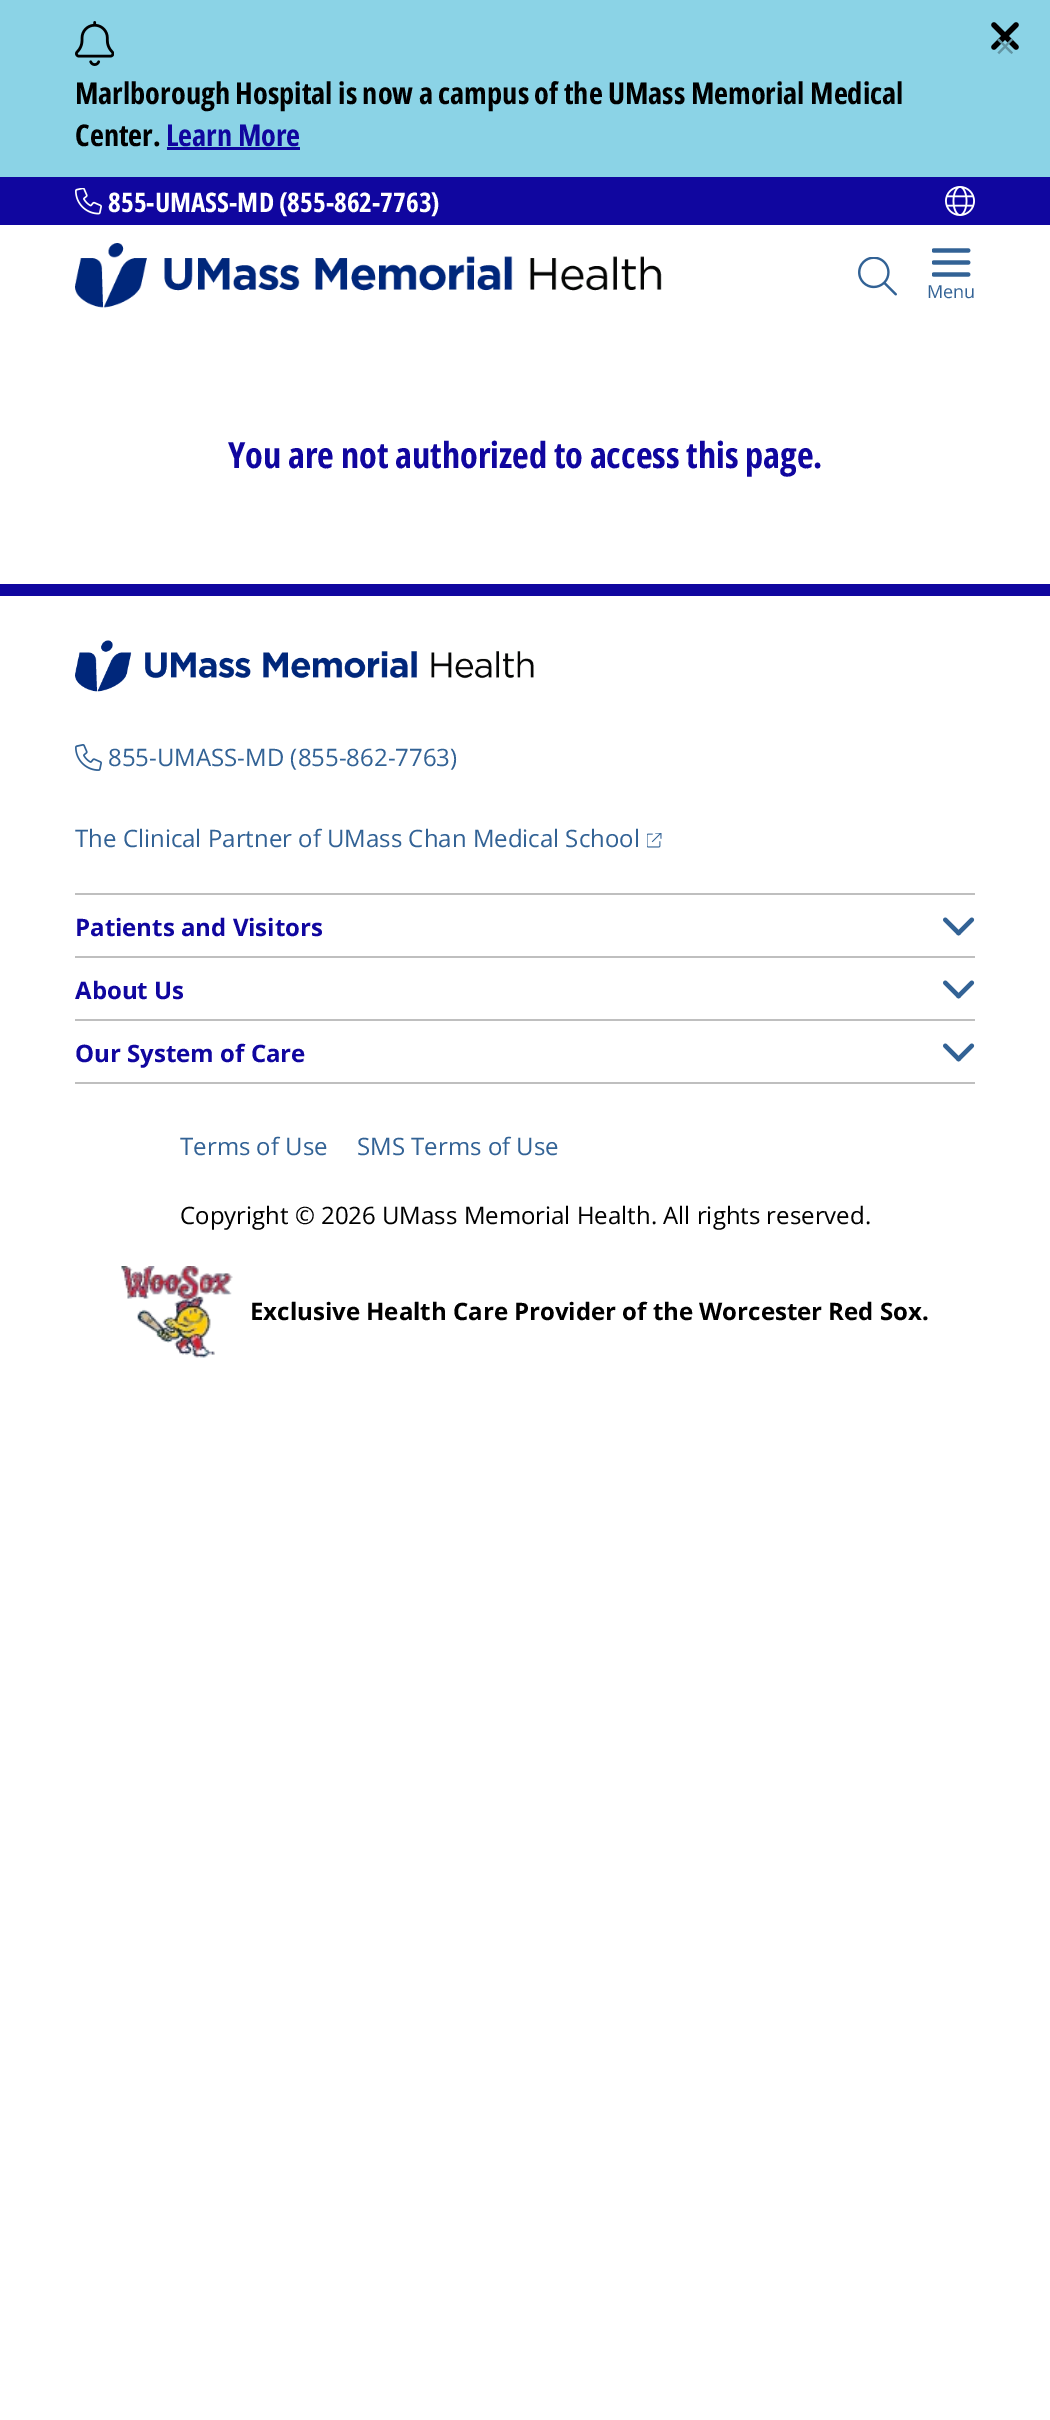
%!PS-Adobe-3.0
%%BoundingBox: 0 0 1050 2420
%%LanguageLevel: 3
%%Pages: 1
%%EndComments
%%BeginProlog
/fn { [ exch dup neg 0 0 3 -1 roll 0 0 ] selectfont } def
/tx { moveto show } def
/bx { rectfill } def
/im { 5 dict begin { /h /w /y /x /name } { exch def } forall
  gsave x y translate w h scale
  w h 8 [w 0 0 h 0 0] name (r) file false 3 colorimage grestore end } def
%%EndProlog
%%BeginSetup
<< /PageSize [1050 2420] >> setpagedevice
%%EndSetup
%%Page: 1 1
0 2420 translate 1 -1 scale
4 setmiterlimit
1 setgray
0 0 1050 2420 bx
0.545 0.827 0.902 setrgbcolor
0 0 1050 177 bx
(image0.raw) 991 22 28 28 im
/OpenSans-Regular 36 fn
0.384 0.584 0.639 setrgbcolor
(×) 995 59 tx
(image1.raw) 75 21 39 45 im
/OpenSans-Bold 30 fn
0 setgray
(Marlborough Hospital is now a campus of the UMass Memorial Medical) 75 104 tx
(Center.) 75 146 tx
0.063 0.024 0.624 setrgbcolor
(Learn More) 166 146 tx
167 147 133 3 bx
0 177 1050 48 bx
(image2.raw) 75 188 27 27 im
/OpenSans-Bold 27 fn
1 setgray
(855-UMASS-MD \(855-862-7763\)) 108 212 tx
(image3.raw) 945 186 30 30 im
(image4.raw) 75 243 587 65 im
(image5.raw) 858 257 39 39 im
(image6.raw) 932 248 39 29 im
/OpenSans-Regular 18 fn
0.196 0.384 0.584 setrgbcolor
(Menu) 927 298 tx
/OpenSans-Bold 36 fn
0.063 0.024 0.624 setrgbcolor
(You are not authorized to access this page.) 228 468 tx
0 584 1050 12 bx
(image7.raw) 75 640 459 52 im
(image8.raw) 75 744 27 27 im
/OpenSans-Regular 24 fn
0.196 0.384 0.584 setrgbcolor
(855-UMASS-MD \(855-862-7763\)) 108 766 tx
(The Clinical Partner of UMass Chan Medical School) 75 847 tx
(image9.raw) 647 833 15 15 im
0.749 setgray
75 893 900 2 bx
75 956 900 2 bx
/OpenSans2-Bold 24 fn
0.063 0.024 0.624 setrgbcolor
(Patients and Visitors) 75 936 tx
(image10.raw) 943 917 32 19 im
0.749 setgray
75 1019 900 2 bx
0.063 0.024 0.624 setrgbcolor
(About Us) 75 999 tx
(image10.raw) 943 980 32 19 im
0.749 setgray
75 1082 900 2 bx
0.063 0.024 0.624 setrgbcolor
(Our System of Care) 75 1062 tx
(image10.raw) 943 1043 32 19 im
/OpenSans-Regular 24 fn
0.196 0.384 0.584 setrgbcolor
(Terms of Use) 180 1155 tx
(SMS Terms of Use) 357 1155 tx
0 setgray
(Copyright © 2026 UMass Memorial Health. All rights reserved.) 180 1224 tx
(image11.raw) 121 1266 112 92 im
/OpenSans2-Bold 24 fn
(Exclusive Health Care Provider of the Worcester Red Sox.) 250 1320 tx
showpage
%%EOF
